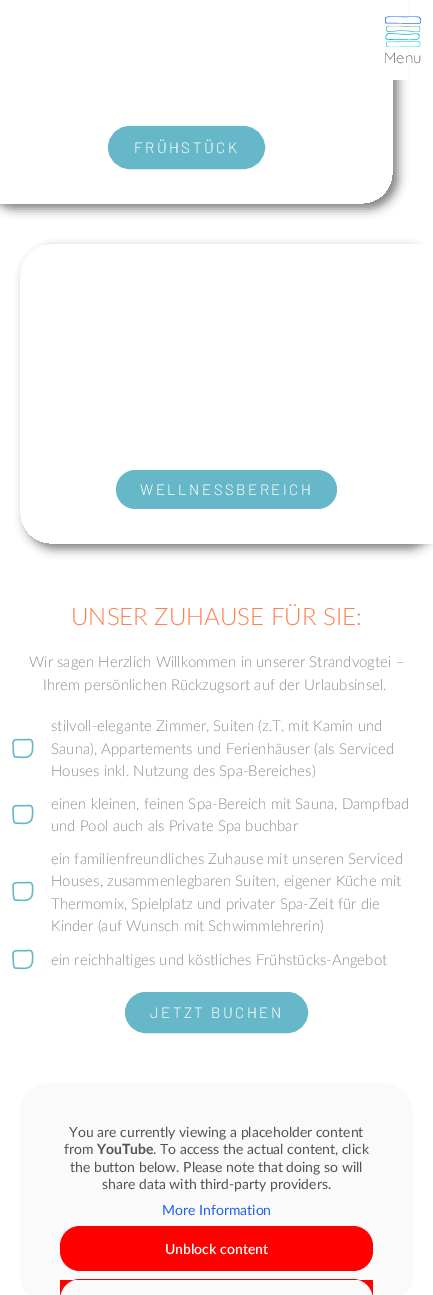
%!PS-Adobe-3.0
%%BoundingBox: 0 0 433 1295
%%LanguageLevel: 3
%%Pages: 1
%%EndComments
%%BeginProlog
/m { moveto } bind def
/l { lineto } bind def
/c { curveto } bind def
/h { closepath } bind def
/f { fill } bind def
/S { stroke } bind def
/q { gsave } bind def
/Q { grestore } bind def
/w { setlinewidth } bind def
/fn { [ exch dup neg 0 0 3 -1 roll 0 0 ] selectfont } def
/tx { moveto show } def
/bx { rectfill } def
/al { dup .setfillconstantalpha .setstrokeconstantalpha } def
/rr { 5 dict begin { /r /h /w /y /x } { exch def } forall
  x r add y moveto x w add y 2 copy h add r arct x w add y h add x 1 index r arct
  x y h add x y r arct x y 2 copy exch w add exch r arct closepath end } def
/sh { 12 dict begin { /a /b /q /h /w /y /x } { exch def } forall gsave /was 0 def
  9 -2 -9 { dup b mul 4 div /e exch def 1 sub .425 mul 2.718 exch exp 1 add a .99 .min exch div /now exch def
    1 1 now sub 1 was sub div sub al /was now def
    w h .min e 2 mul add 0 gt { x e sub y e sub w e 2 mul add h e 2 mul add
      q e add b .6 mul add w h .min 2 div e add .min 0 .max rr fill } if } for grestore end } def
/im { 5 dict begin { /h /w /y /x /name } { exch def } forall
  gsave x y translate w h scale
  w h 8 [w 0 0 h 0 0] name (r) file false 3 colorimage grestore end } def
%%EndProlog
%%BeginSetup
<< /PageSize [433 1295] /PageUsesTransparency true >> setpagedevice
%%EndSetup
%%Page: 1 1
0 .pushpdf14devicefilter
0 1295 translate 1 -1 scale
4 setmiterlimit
1 setgray
0 0 433 1295 bx
q
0 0 m 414 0 l 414 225 l 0 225 l h -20 -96 m 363 -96 l 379.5 -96 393 -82.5 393 -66 c 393 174 l 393 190.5 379.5 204 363 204 c -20 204 l h eoclip newpath
0 setgray
-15 -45 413 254 30 5 0.5 sh
Q
393 0 15 80 bx
(image0.raw) 385 16 36 32 im
/Quicksand-Light 15 fn
0.404 0.384 0.333 setrgbcolor
(Menu) 384 63 tx
0.4 0.722 0.788 setrgbcolor
109 127 155 41 20.5 rr q f Q
2 w
S
/Barlow-Light 15 fn
1 setgray
134 153 m 2.5 0 (FRÜHSTÜCK) ashow
q
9 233 m 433 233 l 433 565 l 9 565 l h 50 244 m 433 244 l 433 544 l 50 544 l 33.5 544 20 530.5 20 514 c 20 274 l 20 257.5 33.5 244 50 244 c h eoclip newpath
0 setgray
25 249 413 300 30 5 0.5 sh
Q
0.4 0.722 0.788 setrgbcolor
116 470 221 39 19.5 rr f
1 setgray
140 495 m 2.5 0 (WELLNESSBEREICH) ashow
/Lato-Light 24 fn
0.996 0.498 0.31 setrgbcolor
(UNSER ZUHAUSE FÜR SIE:) 71 625 tx
/Lato-Light 15 fn
0.561 0.545 0.545 setrgbcolor
(Wir sagen Herzlich Willkommen in unserer Strandvogtei –) 29 667 tx
(Ihrem persönlichen Rückzugsort auf der Urlaubsinsel.) 43 690 tx
(image1.raw) 12 738 22 21 im
(stilvoll-elegante Zimmer, Suiten \(z.T. mit Kamin und) 51 731 tx
(Sauna\), Appartements und Ferienhäuser \(als Serviced) 51 754 tx
(Houses inkl. Nutzung des Spa-Bereiches\)) 51 776 tx
(image1.raw) 12 804 22 21 im
(einen kleinen, feinen Spa-Bereich mit Sauna, Dampfbad) 51 809 tx
(und Pool auch als Private Spa buchbar) 51 831 tx
(image1.raw) 12 881 22 21 im
(ein familienfreundliches Zuhause mit unseren Serviced) 51 864 tx
(Houses, zusammenlegbaren Suiten, eigener Küche mit) 51 886 tx
(Thermomix, Spielplatz und privater Spa-Zeit für die) 51 909 tx
(Kinder \(auf Wunsch mit Schwimmlehrerin\)) 51 931 tx
(image1.raw) 12 949 22 21 im
(ein reichhaltiges und köstliches Frühstücks-Angebot) 51 965 tx
0.4 0.722 0.788 setrgbcolor
125.5 992.5 182 40 20 rr q f Q
1 w
S
/Barlow-Light 15 fn
1 setgray
150 1018 m 2.5 0 (JETZT BUCHEN) ashow
0.98 setgray
20 1083 393 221 30 rr f
/Lato-Regular 14 fn
0.333 setgray
(You are currently viewing a placeholder content) 69 1137 tx
(from) 64 1154 tx
/Lato-Bold 14 fn
(YouTube) 97 1154 tx
/Lato-Regular 14 fn
(. To access the actual content, click) 153 1154 tx
(the button below. Please note that doing so will) 70 1172 tx
(share data with third-party providers.) 102 1189 tx
0.145 0.388 0.922 setrgbcolor
(More Information) 162 1215 tx
1 0 0 setrgbcolor
60 1226 313 45 20 rr f
/Lato-SemiBold 14 fn
1 setgray
(Unblock content) 165 1254 tx
1 0 0 setrgbcolor
80 1279 m 353 1279 l 364 1279 373 1288 373 1299 c 373 1280 l 60 1280 l 60 1299 l 60 1288 69 1279 80 1279 c h f
.poppdf14devicefilter showpage
%%EOF
